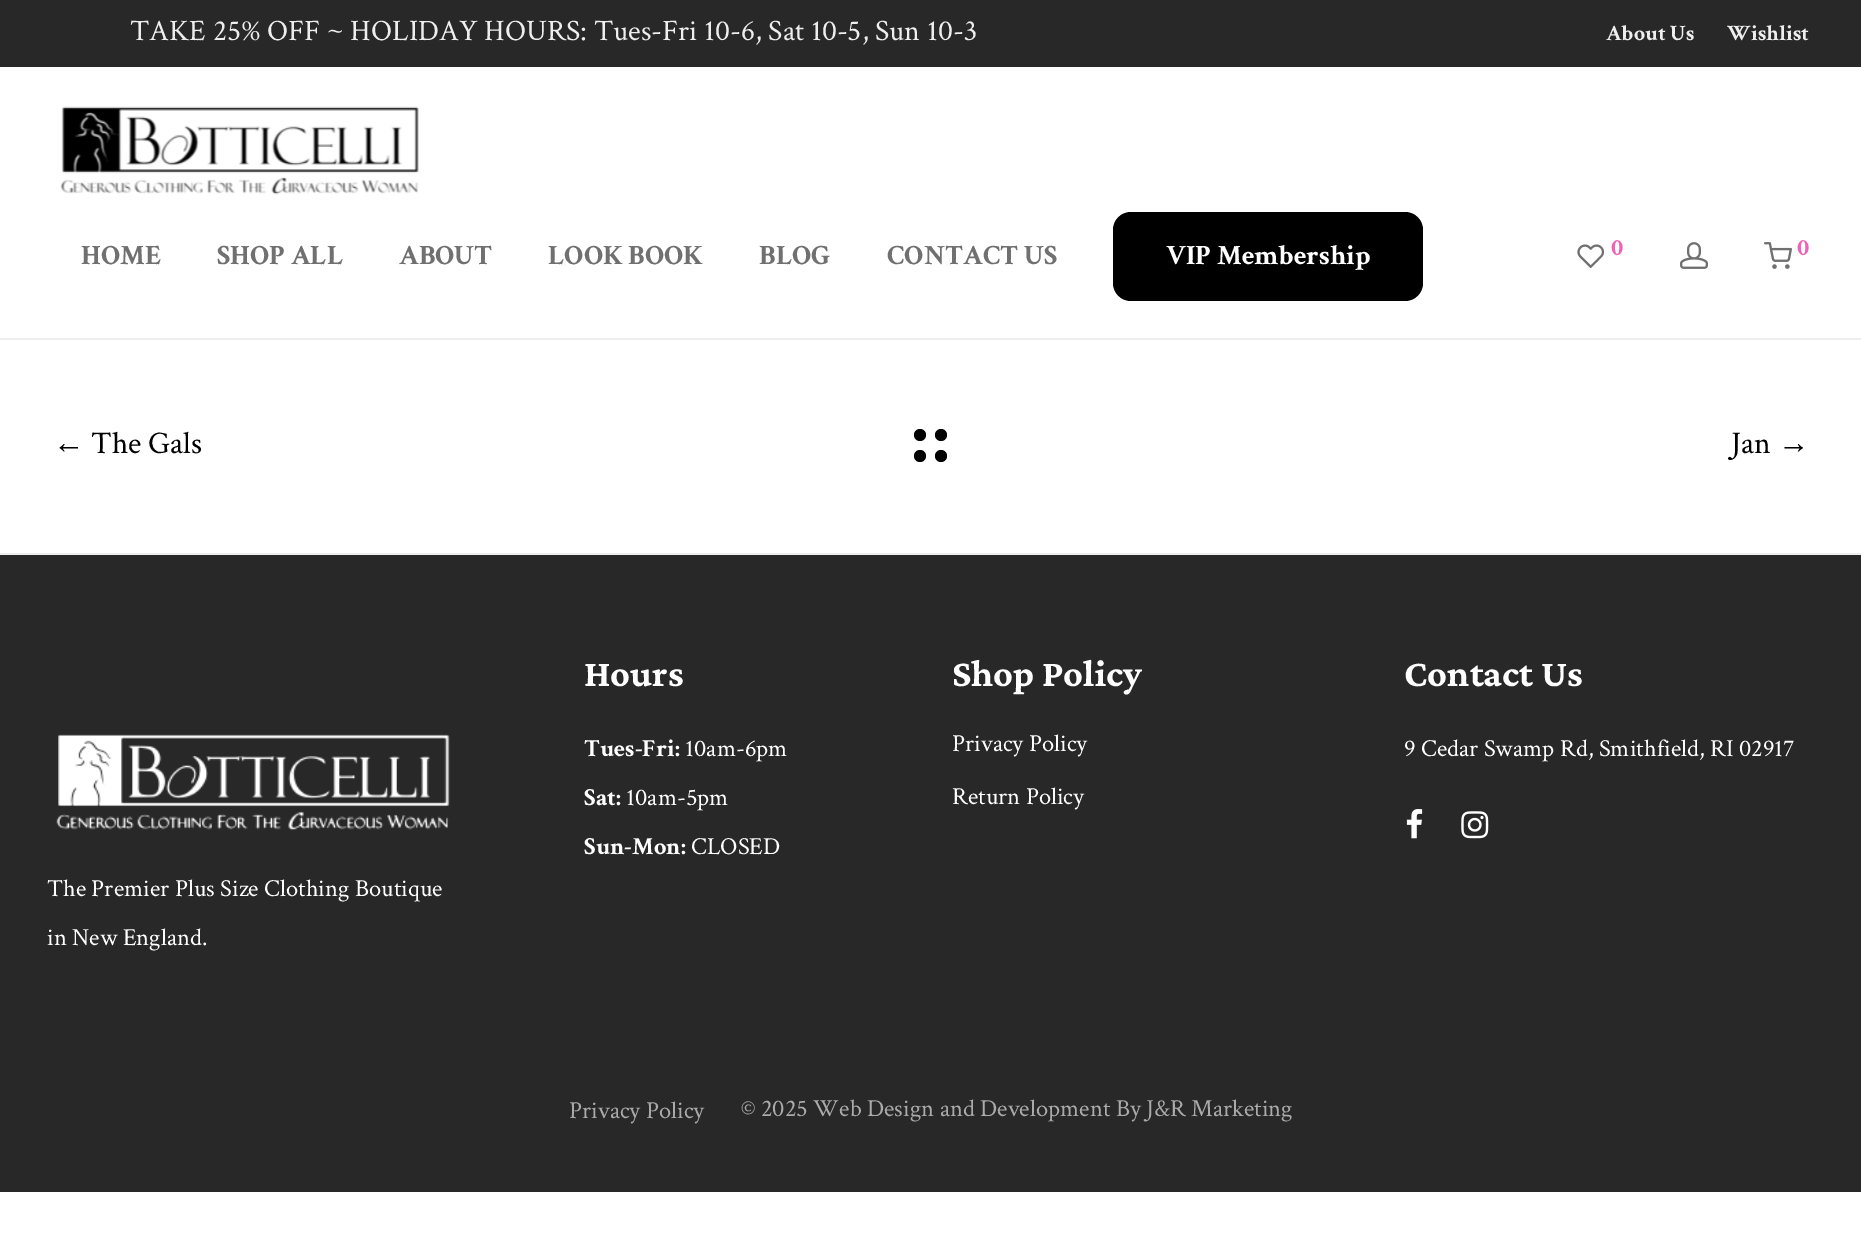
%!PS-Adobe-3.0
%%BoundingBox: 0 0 1861 1250
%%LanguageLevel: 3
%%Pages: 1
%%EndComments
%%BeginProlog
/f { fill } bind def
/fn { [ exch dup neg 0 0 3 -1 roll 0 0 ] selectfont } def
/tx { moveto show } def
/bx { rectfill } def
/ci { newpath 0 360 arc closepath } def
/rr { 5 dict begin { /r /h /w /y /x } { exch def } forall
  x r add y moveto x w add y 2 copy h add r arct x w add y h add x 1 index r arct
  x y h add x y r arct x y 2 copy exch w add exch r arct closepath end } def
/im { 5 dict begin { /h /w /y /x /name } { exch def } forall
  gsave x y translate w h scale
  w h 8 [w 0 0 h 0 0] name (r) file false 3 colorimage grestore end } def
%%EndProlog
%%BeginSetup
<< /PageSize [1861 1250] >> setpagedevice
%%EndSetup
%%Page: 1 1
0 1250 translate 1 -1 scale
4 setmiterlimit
1 setgray
0 0 1861 1250 bx
0.157 setgray
0 0 1861 67 bx
/CrimsonText-Regular 29.75 fn
0.933 setgray
(TAKE 25% OFF ~ HOLIDAY HOURS: Tues-Fri 10-6, Sat 10-5, Sun 10-3) 130 40 tx
/CrimsonText-Bold 22 fn
(About Us) 1606 40 tx
(Wishlist) 1727 40 tx
0 338 1861 2 bx
(image0.raw) 60 106 359 89 im
/CrimsonText-Bold 28 fn
0.439 setgray
(HOME) 81 264 tx
(SHOP ALL) 217 264 tx
(ABOUT) 399 264 tx
(LOOK BOOK) 548 264 tx
(BLOG) 759 264 tx
(CONTACT US) 887 264 tx
0 setgray
1113 212 310 89 18 rr f
1 setgray
(VIP Membership) 1166 264 tx
(image1.raw) 1577 244 28 24 im
/CrimsonText-Bold 24.5 fn
0.941 0.384 0.722 setrgbcolor
(0) 1611 255 tx
(image2.raw) 1680 242 28 27 im
(image3.raw) 1764 242 28 27 im
(0) 1797 255 tx
/LiberationSans-Regular 31.5 fn
0 setgray
(←) 53 453 tx
/CrimsonText-Regular 31.5 fn
(The Gals) 91 453 tx
920 435 6 ci f
941 435 6 ci f
920 456 6 ci f
941 456 6 ci f
(Jan) 1731 453 tx
/LiberationSans-Regular 31.5 fn
(→) 1778 453 tx
0.157 setgray
0 555 1861 637 bx
0.933 setgray
0 553 1861 2 bx
/CrimsonPro-Bold 38.5 fn
1 setgray
(Hours) 584 686 tx
/CrimsonText-Bold 24.5 fn
(Tues-Fri:) 584 756 tx
/CrimsonText-Regular 24.5 fn
(10am-6pm) 685 756 tx
/CrimsonText-Bold 24.5 fn
(Sat:) 584 805 tx
/CrimsonText-Regular 24.5 fn
(10am-5pm) 626 805 tx
/CrimsonText-Bold 24.5 fn
(Sun-Mon:) 584 854 tx
/CrimsonText-Regular 24.5 fn
(CLOSED) 691 854 tx
/CrimsonPro-Bold 38.5 fn
(Shop Policy) 952 686 tx
/CrimsonText-Regular 24.5 fn
(Privacy Policy) 952 751 tx
(Return Policy) 952 804 tx
/CrimsonPro-Bold 38.5 fn
(Contact Us) 1404 686 tx
/CrimsonText-Regular 24.5 fn
(9 Cedar Swamp Rd, Smithfield, RI 02917) 1404 756 tx
(image4.raw) 1406 809 17 30 im
(image5.raw) 1461 811 28 28 im
(image6.raw) 56 734 394 97 im
(The Premier Plus Size Clothing Boutique) 47 896 tx
(in New England.) 47 945 tx
0.667 setgray
(Privacy Policy) 569 1118 tx
(© 2025 Web Design and Development By J&R Marketing) 741 1116 tx
showpage
%%EOF
